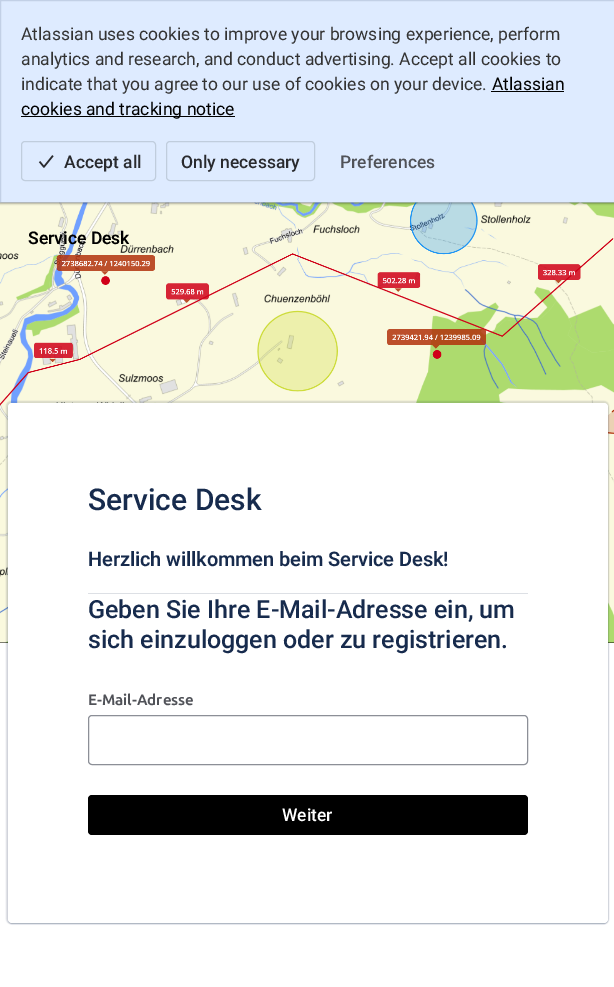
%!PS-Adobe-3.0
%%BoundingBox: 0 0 614 987
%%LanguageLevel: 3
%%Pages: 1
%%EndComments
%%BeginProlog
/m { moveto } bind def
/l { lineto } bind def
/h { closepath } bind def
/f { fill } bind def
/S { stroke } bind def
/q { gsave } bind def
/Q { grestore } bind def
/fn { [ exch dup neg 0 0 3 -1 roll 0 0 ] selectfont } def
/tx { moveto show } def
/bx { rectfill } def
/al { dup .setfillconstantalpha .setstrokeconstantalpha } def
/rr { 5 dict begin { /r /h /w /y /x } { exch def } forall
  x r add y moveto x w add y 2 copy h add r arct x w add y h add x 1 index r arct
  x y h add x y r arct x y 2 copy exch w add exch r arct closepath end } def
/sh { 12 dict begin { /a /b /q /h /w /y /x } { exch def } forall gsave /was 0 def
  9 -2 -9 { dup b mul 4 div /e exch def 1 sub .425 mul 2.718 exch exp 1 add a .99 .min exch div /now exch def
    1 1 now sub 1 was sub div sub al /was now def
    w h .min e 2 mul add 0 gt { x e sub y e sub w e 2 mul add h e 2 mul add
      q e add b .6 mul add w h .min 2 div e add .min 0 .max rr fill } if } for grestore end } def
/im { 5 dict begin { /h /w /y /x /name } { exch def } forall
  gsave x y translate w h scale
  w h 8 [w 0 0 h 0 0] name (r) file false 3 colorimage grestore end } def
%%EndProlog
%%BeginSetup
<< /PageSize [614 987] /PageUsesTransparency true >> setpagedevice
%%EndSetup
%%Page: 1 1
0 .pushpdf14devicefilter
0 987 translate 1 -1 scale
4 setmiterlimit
1 setgray
0 0 614 987 bx
0.871 0.922 1 setrgbcolor
0.5 0.5 m 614.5 0.5 l 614.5 202.5 l 0.5 202.5 l h q f Q
0.761 0.816 0.902 setrgbcolor
S
/Roboto-Regular 17.5 fn
0.2 setgray
(Atlassian uses cookies to improve your browsing experience, perform) 21 40 tx
(analytics and research, and conduct advertising. Accept all cookies to) 21 65 tx
(indicate that you agree to our use of cookies on your device.) 21 90 tx
0 setgray
(Atlassian) 492 90 tx
491 91 73 1 bx
21 116 214 1 bx
(cookies and tracking notice) 21 115 tx
(image0.raw) 38 155 16 13 im
0.753 0.804 0.867 setrgbcolor
21.5 141.5 134 39 3.5 rr S
/Roboto-Medium 17.5 fn
0.161 0.165 0.18 setrgbcolor
(Accept all) 64 168 tx
0.753 0.804 0.867 setrgbcolor
166.5 141.5 148 39 3.5 rr S
0.161 0.165 0.18 setrgbcolor
(Only necessary) 181 168 tx
0.314 0.322 0.345 setrgbcolor
(Preferences) 340 168 tx
0 setgray
0 642 614 1 bx
(image1.raw) 0 202 614 441 im
/Roboto-SemiBold 17.5 fn
(Service Desk) 28 244 tx
0.035 0.118 0.259 setrgbcolor
6 401 603 523 5 0.5 0.13 sh
8 404 600 520 4 0.5 0.25 sh
1 setgray
8 403 600 520 4 rr f
/Roboto-Medium 30 fn
0.09 0.169 0.302 setrgbcolor
(Service Desk) 88 510 tx
0.867 0.878 0.898 setrgbcolor
88 593 440 1 bx
/Roboto-SemiBold 20 fn
0.09 0.169 0.302 setrgbcolor
88 566 m -0.1 0 (Herzlich willkommen beim Service Desk!) ashow
/Roboto-Medium 25 fn
(Geben Sie Ihre E-Mail-Adresse ein, um) 88 618 tx
(sich einzuloggen oder zu registrieren.) 88 648 tx
/Ubuntu-Bold 15 fn
0.314 0.322 0.345 setrgbcolor
(E-Mail-Adresse) 88 705 tx
0.549 0.561 0.592 setrgbcolor
88.5 715.5 439 49 3.5 rr S
0 setgray
88 795 440 40 4 rr f
/Roboto-Medium 17.5 fn
1 setgray
(Weiter) 282 821 tx
.poppdf14devicefilter showpage
%%EOF
